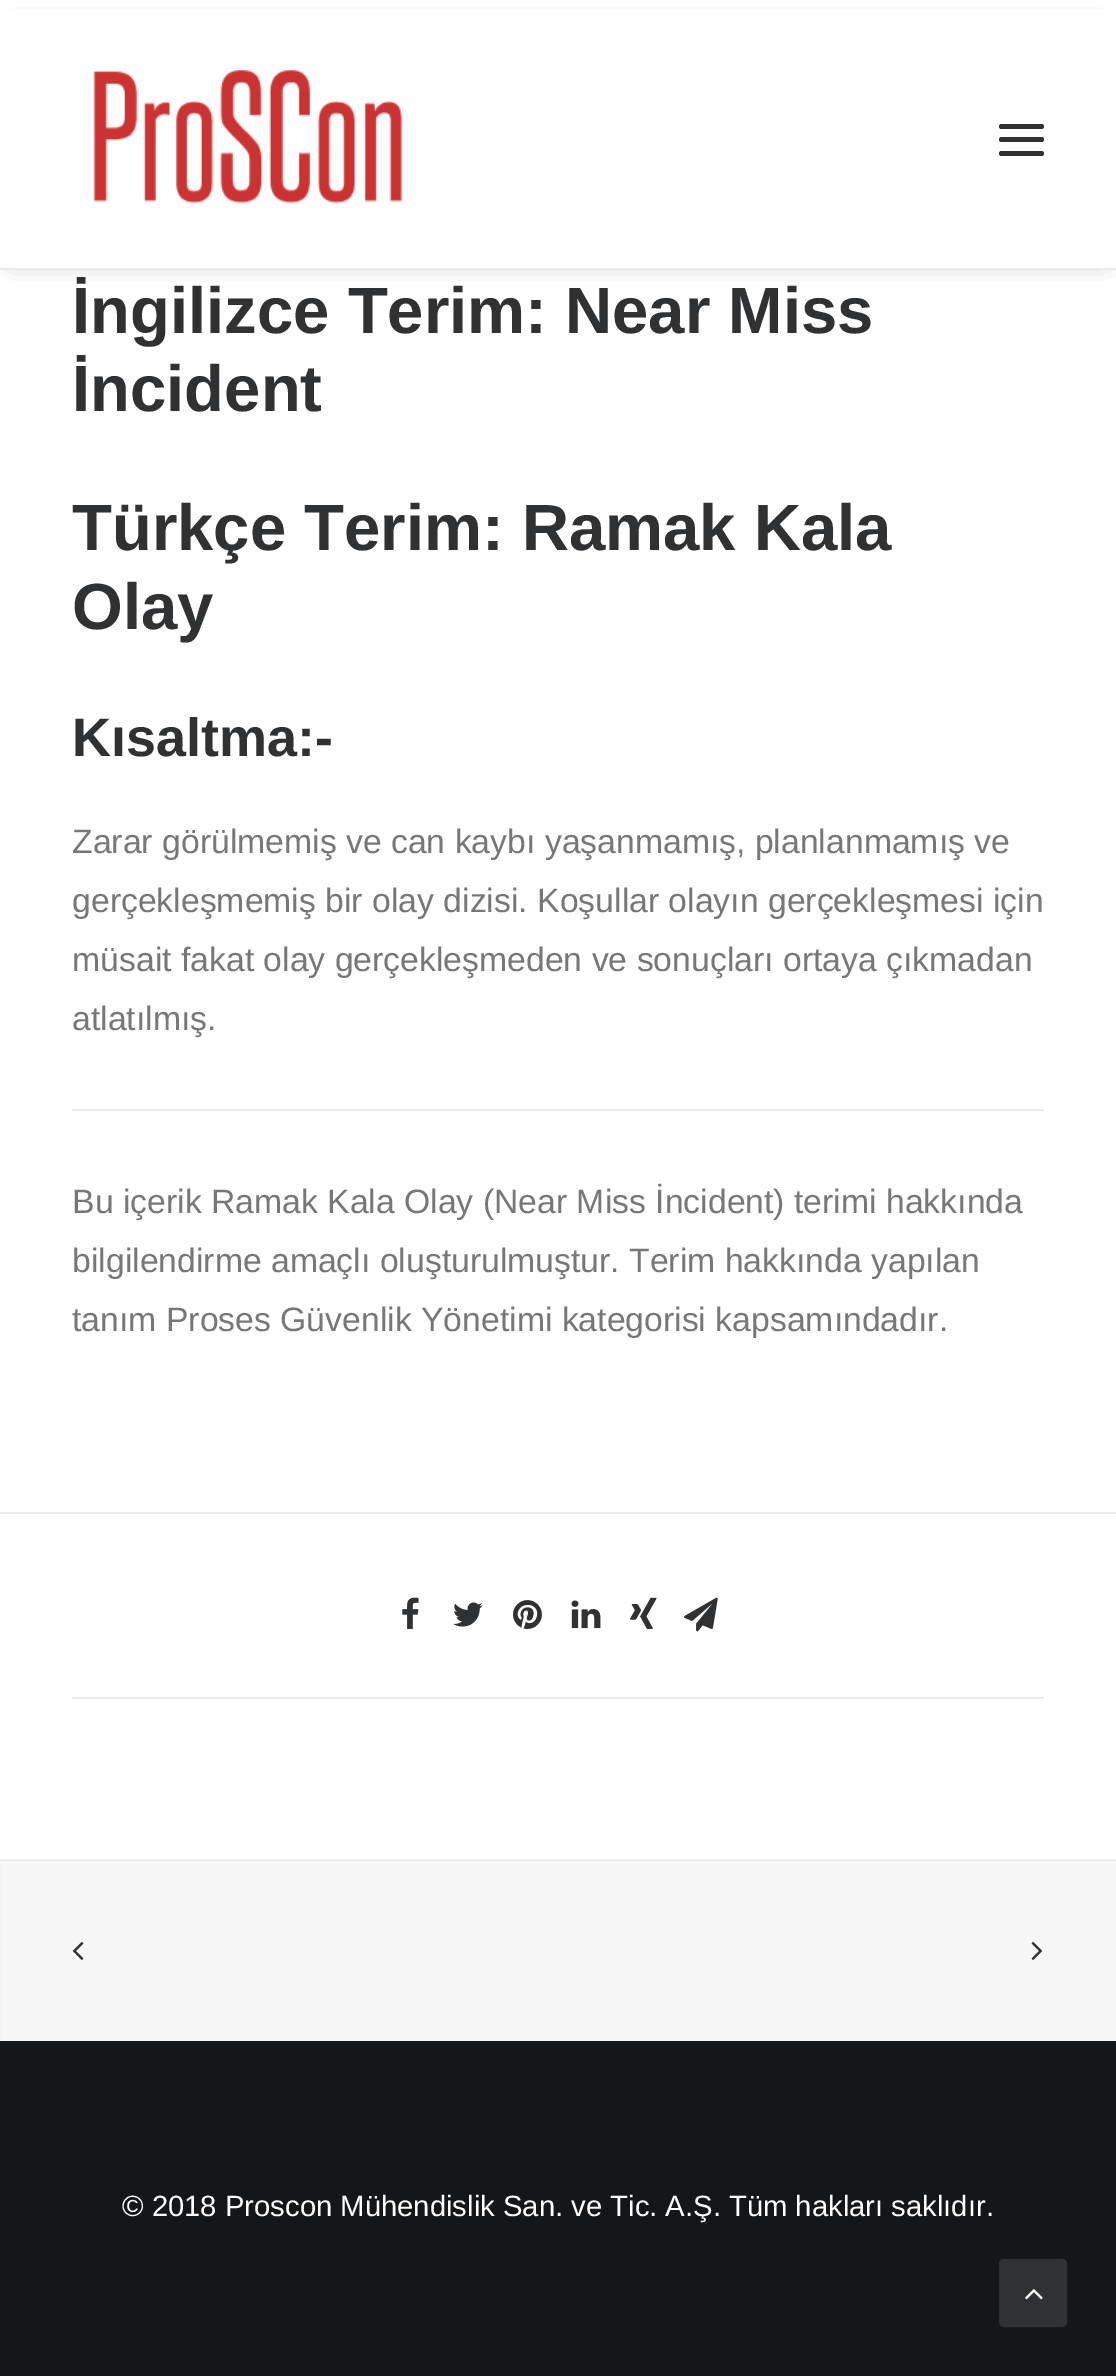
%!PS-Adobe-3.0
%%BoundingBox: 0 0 1116 2376
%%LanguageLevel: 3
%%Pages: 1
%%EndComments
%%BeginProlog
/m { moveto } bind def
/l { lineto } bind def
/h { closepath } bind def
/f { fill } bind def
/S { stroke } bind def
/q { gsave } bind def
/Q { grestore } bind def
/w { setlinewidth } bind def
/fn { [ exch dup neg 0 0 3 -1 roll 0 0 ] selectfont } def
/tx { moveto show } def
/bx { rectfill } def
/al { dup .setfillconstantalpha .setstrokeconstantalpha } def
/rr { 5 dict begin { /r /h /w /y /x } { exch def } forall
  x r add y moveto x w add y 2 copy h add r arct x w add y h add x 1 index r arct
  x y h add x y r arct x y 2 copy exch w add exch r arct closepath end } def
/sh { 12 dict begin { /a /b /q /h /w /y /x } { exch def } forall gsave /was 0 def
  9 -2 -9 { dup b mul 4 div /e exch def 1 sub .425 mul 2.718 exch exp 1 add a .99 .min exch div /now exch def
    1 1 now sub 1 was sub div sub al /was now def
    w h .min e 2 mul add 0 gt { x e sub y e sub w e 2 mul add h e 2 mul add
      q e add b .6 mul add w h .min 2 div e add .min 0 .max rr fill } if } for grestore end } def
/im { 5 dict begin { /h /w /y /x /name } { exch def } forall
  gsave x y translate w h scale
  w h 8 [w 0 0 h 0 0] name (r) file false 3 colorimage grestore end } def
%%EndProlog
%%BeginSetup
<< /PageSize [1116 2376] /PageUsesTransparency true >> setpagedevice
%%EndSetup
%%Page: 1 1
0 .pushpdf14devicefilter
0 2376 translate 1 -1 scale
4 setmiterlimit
1 setgray
0 0 1116 2376 bx
0 setgray
14 32 1089 225 0 11 0.6 sh
1 setgray
0 9 1116 259 bx
0.918 setgray
0 268 1116 2 bx
(image0.raw) 93 70 310 134 im
0.188 0.192 0.2 setrgbcolor
999 137 45 5 2.5 rr f
999 124 45 5 2.5 rr f
999 151 45 5 2.5 rr f
/LiberationSans-Bold 65.25 fn
(İngilizce Terim: Near Miss) 72 333 tx
(İncident) 72 411 tx
(Türkçe Terim: Ramak Kala) 72 550 tx
(Olay) 72 629 tx
/LiberationSans-Bold 54 fn
(Kısaltma:-) 72 756 tx
/LiberationSans-Regular 33.75 fn
0.467 setgray
(Zarar görülmemiş ve can kaybı yaşanmamış, planlanmamış ve) 72 853 tx
(gerçekleşmemiş bir olay dizisi. Koşullar olayın gerçekleşmesi için) 72 912 tx
(müsait fakat olay gerçekleşmeden ve sonuçları ortaya çıkmadan) 72 971 tx
(atlatılmış.) 72 1030 tx
0.918 setgray
72 1109 972 2 bx
0.467 setgray
(Bu içerik Ramak Kala Olay \(Near Miss İncident\) terimi hakkında) 72 1213 tx
(bilgilendirme amaçlı oluşturulmuştur. Terim hakkında yapılan) 72 1272 tx
(tanım Proses Güvenlik Yönetimi kategorisi kapsamındadır.) 72 1331 tx
0.918 setgray
0 1512 1116 2 bx
72 1697 972 2 bx
(image1.raw) 402 1597 17 32 im
(image2.raw) 453 1602 30 25 im
(image3.raw) 513 1600 29 29 im
(image4.raw) 571 1600 30 29 im
(image5.raw) 630 1597 27 32 im
(image6.raw) 684 1597 34 35 im
0.969 setgray
-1 1860 m 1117 1860 l 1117 2042 l -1 2042 l h q f Q
0.918 setgray
2 w
S
(image7.raw) 72 1942 12 18 im
(image8.raw) 1031 1942 12 18 im
0.078 0.086 0.094 setrgbcolor
0 2041 1116 335 bx
/LiberationSans-Regular 29.25 fn
1 setgray
(© 2018 Proscon Mühendislik San. ve Tic. A.Ş. Tüm hakları saklıdır.) 122 2216 tx
0.188 0.192 0.2 setrgbcolor
1000 2260 66 66 4 rr q f Q
S
(image9.raw) 1025 2289 18 11 im
.poppdf14devicefilter showpage
%%EOF
